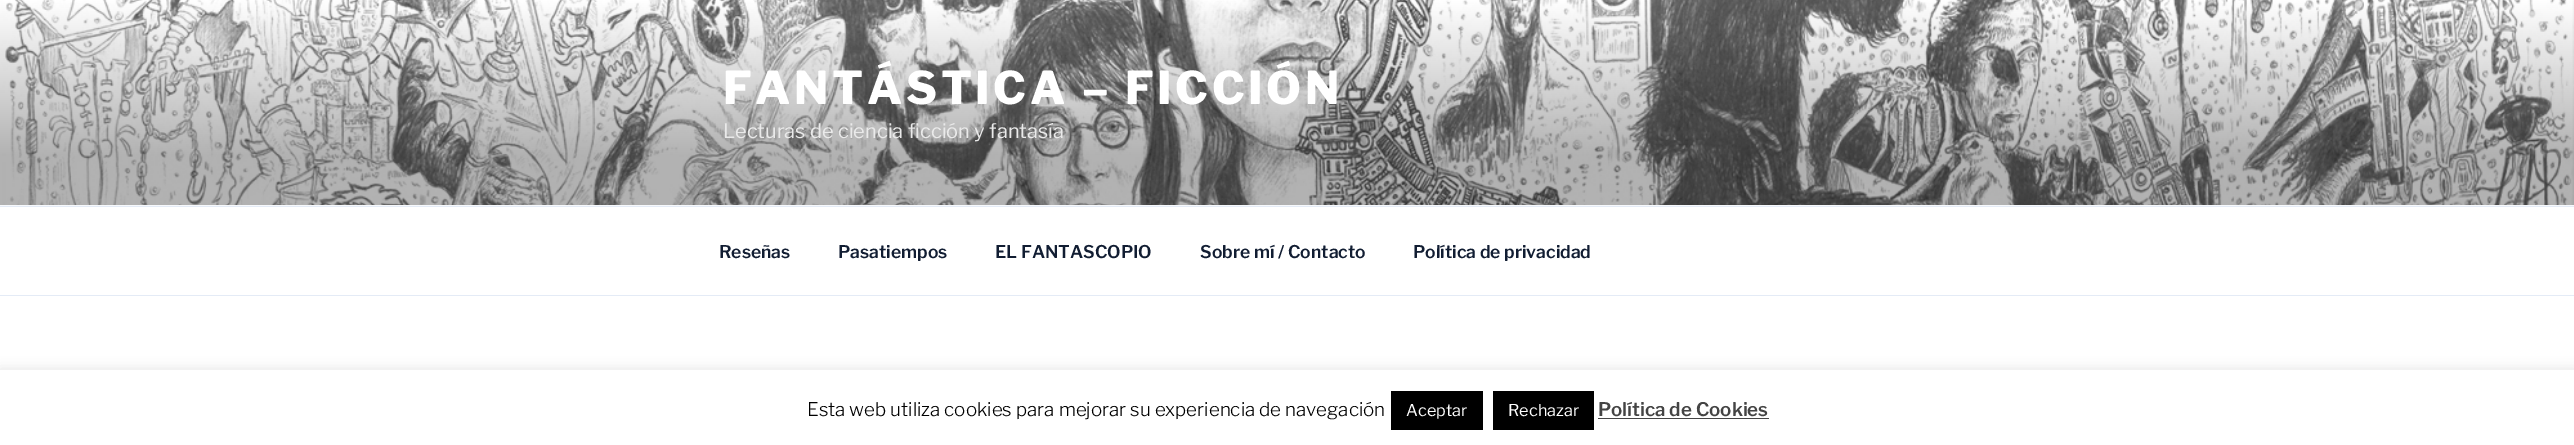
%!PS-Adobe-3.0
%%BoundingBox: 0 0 2574 445
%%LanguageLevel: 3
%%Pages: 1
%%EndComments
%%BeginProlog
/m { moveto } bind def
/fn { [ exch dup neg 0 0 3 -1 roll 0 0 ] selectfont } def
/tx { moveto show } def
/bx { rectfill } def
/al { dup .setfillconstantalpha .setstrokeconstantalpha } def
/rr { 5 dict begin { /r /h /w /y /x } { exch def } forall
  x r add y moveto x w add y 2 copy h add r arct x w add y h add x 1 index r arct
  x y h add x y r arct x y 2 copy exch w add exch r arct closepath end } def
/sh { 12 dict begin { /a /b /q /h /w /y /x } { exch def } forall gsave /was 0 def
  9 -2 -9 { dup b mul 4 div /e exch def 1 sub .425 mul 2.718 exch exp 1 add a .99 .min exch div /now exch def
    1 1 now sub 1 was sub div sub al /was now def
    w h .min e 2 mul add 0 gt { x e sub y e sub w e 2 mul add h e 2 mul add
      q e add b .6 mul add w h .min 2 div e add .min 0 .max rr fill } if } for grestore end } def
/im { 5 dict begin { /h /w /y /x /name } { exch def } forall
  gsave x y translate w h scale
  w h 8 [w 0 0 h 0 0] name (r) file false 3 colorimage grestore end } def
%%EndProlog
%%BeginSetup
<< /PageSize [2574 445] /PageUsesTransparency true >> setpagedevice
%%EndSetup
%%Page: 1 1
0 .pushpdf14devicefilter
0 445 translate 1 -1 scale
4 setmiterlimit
1 setgray
0 0 2574 445 bx
0.969 0.976 0.988 setrgbcolor
0 205 2574 1 bx
(image0.raw) 0 0 2574 205 im
/LibreFranklin-Thin 45 fn
1 setgray
723 104 m 3.6 0 (FANTÁSTICA – FICCIÓN) ashow
/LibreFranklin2-Thin 20 fn
0.918 setgray
(Lecturas de ciencia ficción y fantasía) 723 138 tx
0.894 0.922 0.965 setrgbcolor
0 206 2574 1 bx
0 295 2574 1 bx
/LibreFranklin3-Thin 17.5 fn
0.067 0.114 0.196 setrgbcolor
(Reseñas) 719 258 tx
(Pasatiempos) 838 258 tx
(EL FANTASCOPIO) 995 258 tx
(Sobre mí / Contacto) 1200 258 tx
(Política de privacidad) 1413 258 tx
0.675 0.671 0.671 setrgbcolor
0 369 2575 75 0 6 0.3 sh
1 setgray
0 370 2574 75 bx
/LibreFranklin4-Thin 18.75 fn
0 setgray
(Esta web utiliza cookies para mejorar su experiencia de navegación) 807 416 tx
1391 391 92 39 bx
/LibreFranklin2-Thin 16.25 fn
1 setgray
(Aceptar) 1406 416 tx
0 setgray
1493 391 101 39 bx
1 setgray
(Rechazar) 1508 416 tx
/LibreFranklin3-Thin 18.75 fn
0.267 setgray
(Política de Cookies) 1598 416 tx
1598 418 171 1 bx
.poppdf14devicefilter showpage
%%EOF
